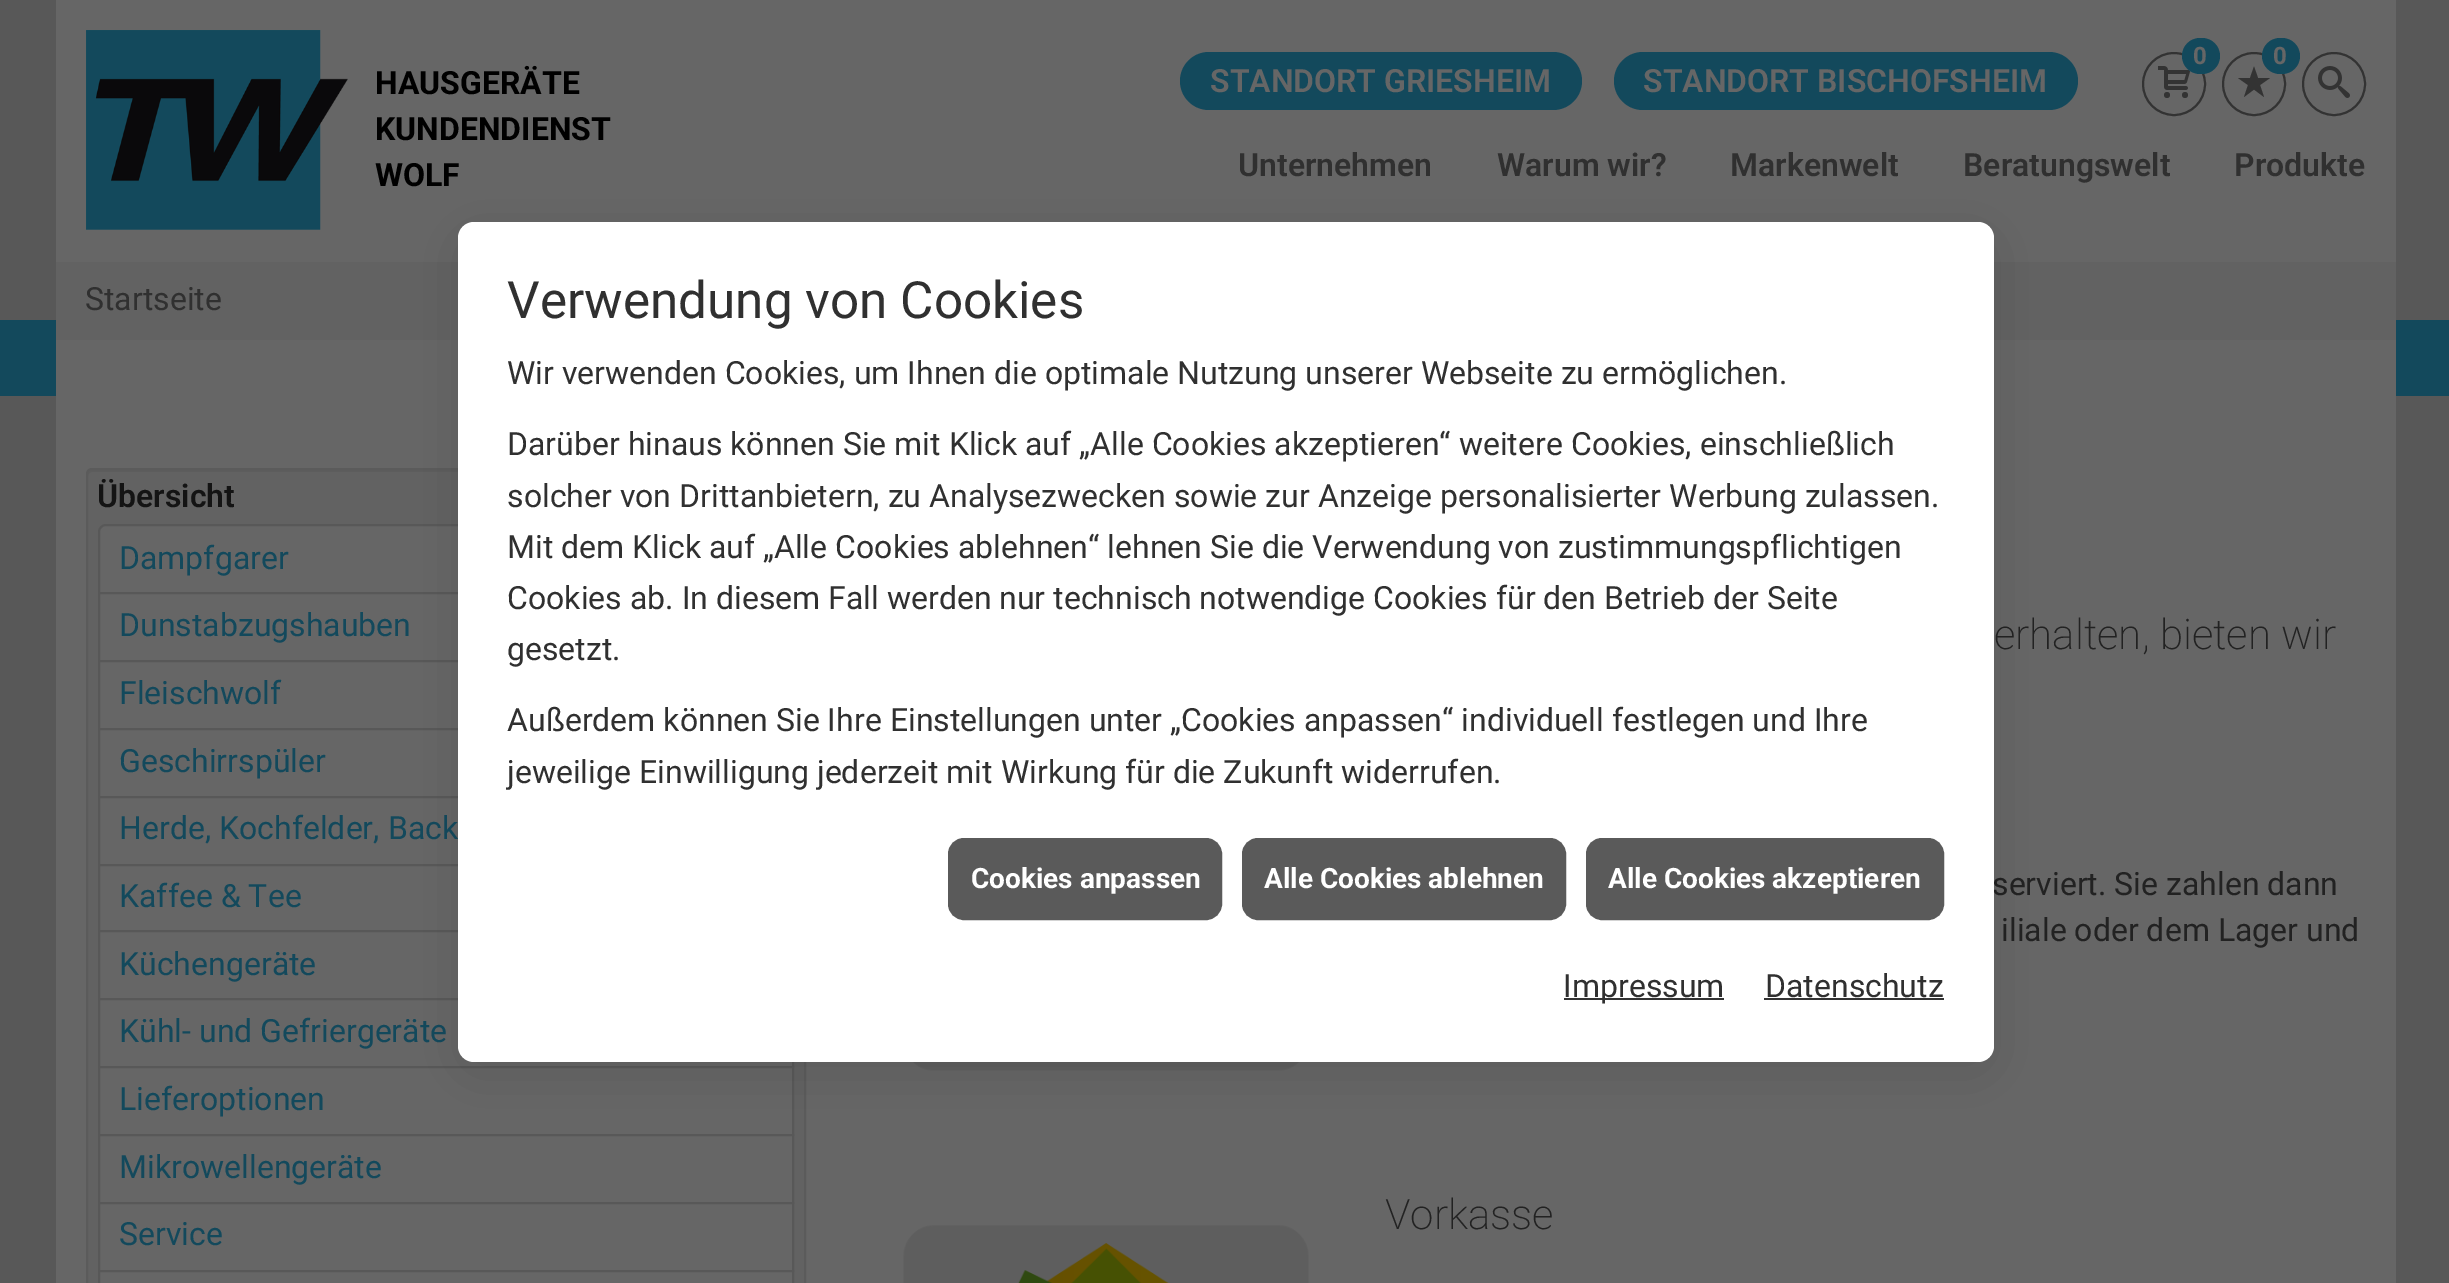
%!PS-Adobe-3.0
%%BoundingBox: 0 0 2449 1283
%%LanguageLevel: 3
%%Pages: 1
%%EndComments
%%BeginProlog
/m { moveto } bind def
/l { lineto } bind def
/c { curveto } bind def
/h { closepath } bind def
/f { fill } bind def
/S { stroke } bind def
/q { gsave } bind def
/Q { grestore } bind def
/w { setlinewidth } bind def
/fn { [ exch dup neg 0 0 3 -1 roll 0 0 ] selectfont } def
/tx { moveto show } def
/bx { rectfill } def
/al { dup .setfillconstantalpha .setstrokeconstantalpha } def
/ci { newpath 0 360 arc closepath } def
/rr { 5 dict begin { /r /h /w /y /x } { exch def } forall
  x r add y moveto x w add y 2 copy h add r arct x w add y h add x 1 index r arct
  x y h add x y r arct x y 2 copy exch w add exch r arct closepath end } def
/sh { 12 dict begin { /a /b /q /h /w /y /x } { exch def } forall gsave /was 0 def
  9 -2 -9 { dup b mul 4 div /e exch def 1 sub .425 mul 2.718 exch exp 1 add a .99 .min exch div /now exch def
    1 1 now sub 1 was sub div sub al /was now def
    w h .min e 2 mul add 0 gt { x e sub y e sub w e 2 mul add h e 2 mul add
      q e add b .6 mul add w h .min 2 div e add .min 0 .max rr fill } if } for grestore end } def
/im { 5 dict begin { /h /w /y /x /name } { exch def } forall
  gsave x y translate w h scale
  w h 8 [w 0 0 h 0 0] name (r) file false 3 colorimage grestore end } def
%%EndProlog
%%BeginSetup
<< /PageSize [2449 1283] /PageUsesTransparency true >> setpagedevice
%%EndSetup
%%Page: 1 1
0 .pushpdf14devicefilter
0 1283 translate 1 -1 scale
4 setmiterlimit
0.345 setgray
0 0 2449 1283 bx
0.4 setgray
56 0 2340 262 bx
(image0.raw) 86 30 262 200 im
/Roboto-Bold 32 fn
0 setgray
(HAUSGERÄTE) 375 94 tx
(KUNDENDIENST) 375 140 tx
(WOLF) 375 186 tx
0.2 setgray
2 w
2174 84 31 ci S
(image1.raw) 2158 66 32 32 im
0.075 0.286 0.361 setrgbcolor
2182 38 38 36 18 rr f
/Roboto-Bold 24 fn
0.4 setgray
(0) 2193 64 tx
0.2 setgray
2254 84 31 ci S
2270 78 m 2258 78 l 2254 66.5 l 2250 78 l 2238 78 l 2248 85 l 2244 97 l 2254 89.5 l 2264 97 l 2260 85 l h f
0.075 0.286 0.361 setrgbcolor
2262 38 38 36 18 rr f
0.4 setgray
(0) 2273 64 tx
0.2 setgray
2334 84 31 ci S
(image2.raw) 2318 66 32 32 im
0.075 0.286 0.361 setrgbcolor
1180 52 402 58 29 rr f
/Roboto-SemiBold 32 fn
0.4 setgray
(STANDORT GRIESHEIM) 1210 92 tx
0.075 0.286 0.361 setrgbcolor
1614 52 464 58 29 rr f
0.4 setgray
(STANDORT BISCHOFSHEIM) 1643 92 tx
0.188 setgray
(Unternehmen) 1238 176 tx
(Warum wir?) 1497 176 tx
(Markenwelt) 1730 176 tx
(Beratungswelt) 1963 176 tx
(Produkte) 2234 176 tx
0.075 0.286 0.361 setrgbcolor
0 320 2449 76 bx
0.384 setgray
56 262 2340 78 bx
/Roboto-Regular 32 fn
0.188 setgray
(Startseite) 85 310 tx
0.4 setgray
56 340 2340 943 bx
0.384 setgray
86 468 720 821 6 rr f
0.365 setgray
92 472 m 800 472 l 802 472 804 474 804 476 c 804 473 804 470 800 470 c 92 470 l 88 470 88 473 88 476 c 88 474 90 472 92 472 c h f
0.357 setgray
87 469 718 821 5 rr S
/Roboto-SemiBold 32 fn
0.078 setgray
(Übersicht) 97 507 tx
0.4 setgray
106 525 m 786 525 l 790 525 793 528 793 532 c 793 593 l 99 593 l 99 532 l 99 528 102 525 106 525 c h q f Q
0.345 setgray
S
/Roboto-Regular 32 fn
0.075 0.286 0.361 setrgbcolor
(Dampfgarer) 119 569 tx
0.4 setgray
100 594 358 66 bx
0.345 setgray
99 593 694 68 rectstroke
0.075 0.286 0.361 setrgbcolor
(Dunstabzugshauben) 119 636 tx
0.4 setgray
100 662 358 66 bx
0.345 setgray
99 661 694 68 rectstroke
0.075 0.286 0.361 setrgbcolor
(Fleischwolf) 119 704 tx
0.4 setgray
100 730 358 66 bx
0.345 setgray
99 729 694 68 rectstroke
0.075 0.286 0.361 setrgbcolor
(Geschirrspüler) 119 772 tx
0.4 setgray
100 798 358 66 bx
0.345 setgray
99 797 694 68 rectstroke
0.075 0.286 0.361 setrgbcolor
(Herde, Kochfelder, Back) 119 839 tx
0.4 setgray
100 866 358 64 bx
0.345 setgray
99 865 694 66 rectstroke
0.075 0.286 0.361 setrgbcolor
(Kaffee & Tee) 119 907 tx
0.4 setgray
100 932 358 66 bx
0.345 setgray
99 931 694 68 rectstroke
0.075 0.286 0.361 setrgbcolor
(Küchengeräte) 119 975 tx
0.4 setgray
99 999 m 793 999 l 793 1067 l 99 1067 l h q f Q
0.345 setgray
S
0.075 0.286 0.361 setrgbcolor
(Kühl- und Gefriergeräte) 119 1042 tx
0.4 setgray
99 1067 m 793 1067 l 793 1135 l 99 1135 l h q f Q
0.345 setgray
S
0.075 0.286 0.361 setrgbcolor
(Lieferoptionen) 119 1110 tx
0.4 setgray
99 1135 m 793 1135 l 793 1203 l 99 1203 l h q f Q
0.345 setgray
S
0.075 0.286 0.361 setrgbcolor
(Mikrowellengeräte) 119 1178 tx
0.4 setgray
99 1203 m 793 1203 l 793 1271 l 99 1271 l h q f Q
0.345 setgray
S
0.075 0.286 0.361 setrgbcolor
(Service) 119 1245 tx
0.4 setgray
99 1271 m 793 1271 l 793 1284 l 99 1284 l h q f Q
0.345 setgray
S
/Roboto-ExtraLight 42 fn
0.133 setgray
(erhalten, bieten wir) 1994 649 tx
/Roboto-Regular 32 fn
(serviert. Sie zahlen dann) 1992 895 tx
(iliale oder dem Lager und) 2001 941 tx
(image3.raw) 913 1062 387 9 im
/Roboto-ExtraLight 42 fn
(Vorkasse) 1385 1229 tx
(image4.raw) 903 1225 406 58 im
0 setgray
458 234 1536 840 16 28 0.1 sh
1 setgray
458 222 1536 840 16 rr f
/Roboto-Regular 51.25 fn
0.188 setgray
(Verwendung von Cookies) 507 318 tx
/Roboto-Regular 32 fn
(Wir verwenden Cookies, um Ihnen die optimale Nutzung unserer Webseite zu ermöglichen.) 507 384 tx
(Darüber hinaus können Sie mit Klick auf „Alle Cookies akzeptieren“ weitere Cookies, einschließlich) 507 455 tx
(solcher von Drittanbietern, zu Analysezwecken sowie zur Anzeige personalisierter Werbung zulassen.) 507 507 tx
(Mit dem Klick auf „Alle Cookies ablehnen“ lehnen Sie die Verwendung von zustimmungspflichtigen) 507 558 tx
(Cookies ab. In diesem Fall werden nur technisch notwendige Cookies für den Betrieb der Seite) 507 609 tx
(gesetzt.) 507 660 tx
(Außerdem können Sie Ihre Einstellungen unter „Cookies anpassen“ individuell festlegen und Ihre) 507 731 tx
(jeweilige Einwilligung jederzeit mit Wirkung für die Zukunft widerrufen.) 507 783 tx
0.353 setgray
949 839 272 80 15 rr q f Q
S
/Roboto-Bold 28 fn
1 setgray
(Cookies anpassen) 971 888 tx
0.353 setgray
1243 839 322 80 15 rr q f Q
S
1 setgray
(Alle Cookies ablehnen) 1264 888 tx
0.353 setgray
1587 839 356 80 15 rr q f Q
S
1 setgray
(Alle Cookies akzeptieren) 1608 888 tx
0.2 setgray
1564 998 160 2 bx
/Roboto-Regular 32 fn
0.188 setgray
(Impressum) 1563 997 tx
(Datenschutz) 1765 997 tx
0.2 setgray
1764 998 180 2 bx
.poppdf14devicefilter showpage
%%EOF
